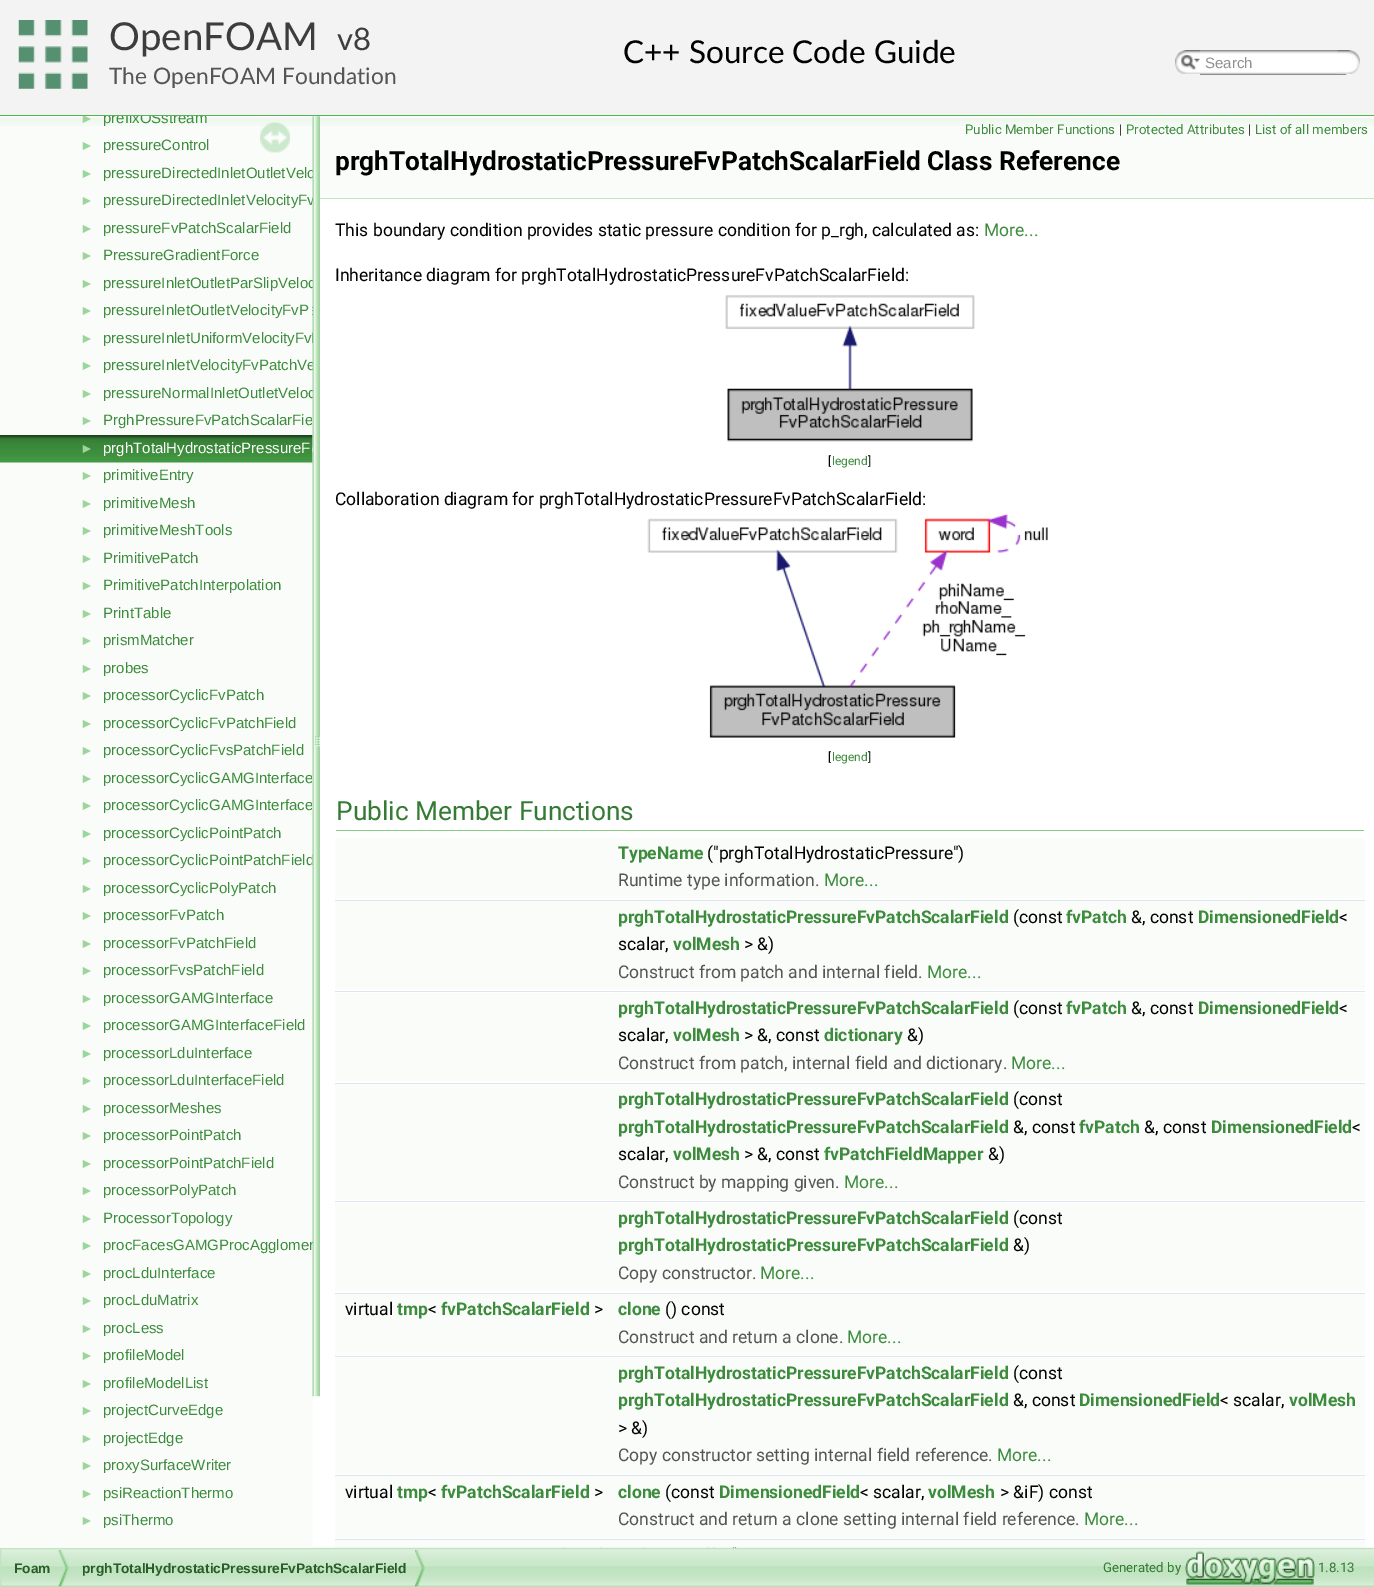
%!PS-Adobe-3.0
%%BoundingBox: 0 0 1374 1587
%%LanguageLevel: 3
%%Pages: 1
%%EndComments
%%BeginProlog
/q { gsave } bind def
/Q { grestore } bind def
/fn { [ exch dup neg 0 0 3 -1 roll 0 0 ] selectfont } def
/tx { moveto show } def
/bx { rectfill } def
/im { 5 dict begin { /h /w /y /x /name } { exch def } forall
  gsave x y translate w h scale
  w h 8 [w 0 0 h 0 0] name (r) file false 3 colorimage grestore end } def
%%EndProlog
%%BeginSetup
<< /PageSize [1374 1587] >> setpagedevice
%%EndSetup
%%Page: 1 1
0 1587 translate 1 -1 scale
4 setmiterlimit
1 setgray
0 0 1374 1587 bx
0.953 setgray
0 0 1374 115 bx
0.325 0.706 0.325 setrgbcolor
0 115 1374 1 bx
(image0.raw) 18 20 70 69 im
/Lato-Regular 38.5 fn
0.239 setgray
(OpenFOAM) 109 50 tx
/Lato-Regular 31 fn
(v8) 337 50 tx
/Lato-Regular 22.75 fn
0.333 setgray
(The OpenFOAM Foundation) 109 84 tx
(image1.raw) 1175 50 25 24 im
(image2.raw) 1181 54 19 16 im
(image3.raw) 1200 50 147 25 im
/LiberationSans-Regular 15 fn
0.565 setgray
(Search) 1205 68 tx
(image4.raw) 1337 50 23 24 im
/Lato-Regular 31.5 fn
0 setgray
(C++ Source Code Guide) 623 63 tx
0.976 0.988 0.976 setrgbcolor
335 1540 1030 8 bx
(image12.raw) 1 1547 1373 40 im
0 116 313 1432 bx
(image5.raw) 0 116 313 10 im
q
0 116 313 1432 rectclip
/LiberationSans-Regular 14 fn
0.612 0.831 0.612 setrgbcolor
(►) 80 123 tx
/LiberationSans-Regular 15 fn
0.239 0.549 0.239 setrgbcolor
(prefixOSstream) 103 123 tx
Q
/LiberationSans-Regular 14 fn
0.612 0.831 0.612 setrgbcolor
(►) 80 150 tx
/LiberationSans-Regular 15 fn
0.239 0.549 0.239 setrgbcolor
(pressureControl) 103 150 tx
/LiberationSans-Regular 14 fn
0.612 0.831 0.612 setrgbcolor
(►) 80 178 tx
/LiberationSans-Regular 15 fn
0.239 0.549 0.239 setrgbcolor
(pressureDirectedInletOutletVelo) 103 178 tx
/LiberationSans-Regular 14 fn
0.612 0.831 0.612 setrgbcolor
(►) 80 205 tx
/LiberationSans-Regular 15 fn
0.239 0.549 0.239 setrgbcolor
(pressureDirectedInletVelocityFv) 103 205 tx
/LiberationSans-Regular 14 fn
0.612 0.831 0.612 setrgbcolor
(►) 80 233 tx
/LiberationSans-Regular 15 fn
0.239 0.549 0.239 setrgbcolor
(pressureFvPatchScalarField) 103 233 tx
/LiberationSans-Regular 14 fn
0.612 0.831 0.612 setrgbcolor
(►) 80 260 tx
/LiberationSans-Regular 15 fn
0.239 0.549 0.239 setrgbcolor
(PressureGradientForce) 103 260 tx
/LiberationSans-Regular 14 fn
0.612 0.831 0.612 setrgbcolor
(►) 80 288 tx
/LiberationSans-Regular 15 fn
0.239 0.549 0.239 setrgbcolor
(pressureInletOutletParSlipVeloc) 103 288 tx
/LiberationSans-Regular 14 fn
0.612 0.831 0.612 setrgbcolor
(►) 80 315 tx
/LiberationSans-Regular 15 fn
0.239 0.549 0.239 setrgbcolor
(pressureInletOutletVelocityFvP) 103 315 tx
/LiberationSans-Regular 14 fn
0.612 0.831 0.612 setrgbcolor
(►) 80 343 tx
/LiberationSans-Regular 15 fn
0.239 0.549 0.239 setrgbcolor
(pressureInletUniformVelocityFv) 103 343 tx
/LiberationSans-Regular 14 fn
0.612 0.831 0.612 setrgbcolor
(►) 80 370 tx
/LiberationSans-Regular 15 fn
0.239 0.549 0.239 setrgbcolor
(pressureInletVelocityFvPatchVe) 103 370 tx
/LiberationSans-Regular 14 fn
0.612 0.831 0.612 setrgbcolor
(►) 80 398 tx
/LiberationSans-Regular 15 fn
0.239 0.549 0.239 setrgbcolor
(pressureNormalInletOutletVeloc) 103 398 tx
/LiberationSans-Regular 14 fn
0.612 0.831 0.612 setrgbcolor
(►) 80 425 tx
/LiberationSans-Regular 15 fn
0.239 0.549 0.239 setrgbcolor
(PrghPressureFvPatchScalarFie) 103 425 tx
(image6.raw) 0 435 313 28 im
/LiberationSans-Regular 14 fn
0.612 0.831 0.612 setrgbcolor
(►) 80 453 tx
/LiberationSans-Regular 15 fn
1 setgray
(prghTotalHydrostaticPressureF) 103 453 tx
/LiberationSans-Regular 14 fn
0.612 0.831 0.612 setrgbcolor
(►) 80 480 tx
/LiberationSans-Regular 15 fn
0.239 0.549 0.239 setrgbcolor
(primitiveEntry) 103 480 tx
/LiberationSans-Regular 14 fn
0.612 0.831 0.612 setrgbcolor
(►) 80 508 tx
/LiberationSans-Regular 15 fn
0.239 0.549 0.239 setrgbcolor
(primitiveMesh) 103 508 tx
/LiberationSans-Regular 14 fn
0.612 0.831 0.612 setrgbcolor
(►) 80 535 tx
/LiberationSans-Regular 15 fn
0.239 0.549 0.239 setrgbcolor
(primitiveMeshTools) 103 535 tx
/LiberationSans-Regular 14 fn
0.612 0.831 0.612 setrgbcolor
(►) 80 563 tx
/LiberationSans-Regular 15 fn
0.239 0.549 0.239 setrgbcolor
(PrimitivePatch) 103 563 tx
/LiberationSans-Regular 14 fn
0.612 0.831 0.612 setrgbcolor
(►) 80 590 tx
/LiberationSans-Regular 15 fn
0.239 0.549 0.239 setrgbcolor
(PrimitivePatchInterpolation) 103 590 tx
/LiberationSans-Regular 14 fn
0.612 0.831 0.612 setrgbcolor
(►) 80 618 tx
/LiberationSans-Regular 15 fn
0.239 0.549 0.239 setrgbcolor
(PrintTable) 103 618 tx
/LiberationSans-Regular 14 fn
0.612 0.831 0.612 setrgbcolor
(►) 80 645 tx
/LiberationSans-Regular 15 fn
0.239 0.549 0.239 setrgbcolor
(prismMatcher) 103 645 tx
/LiberationSans-Regular 14 fn
0.612 0.831 0.612 setrgbcolor
(►) 80 673 tx
/LiberationSans-Regular 15 fn
0.239 0.549 0.239 setrgbcolor
(probes) 103 673 tx
/LiberationSans-Regular 14 fn
0.612 0.831 0.612 setrgbcolor
(►) 80 700 tx
/LiberationSans-Regular 15 fn
0.239 0.549 0.239 setrgbcolor
(processorCyclicFvPatch) 103 700 tx
/LiberationSans-Regular 14 fn
0.612 0.831 0.612 setrgbcolor
(►) 80 728 tx
/LiberationSans-Regular 15 fn
0.239 0.549 0.239 setrgbcolor
(processorCyclicFvPatchField) 103 728 tx
/LiberationSans-Regular 14 fn
0.612 0.831 0.612 setrgbcolor
(►) 80 755 tx
/LiberationSans-Regular 15 fn
0.239 0.549 0.239 setrgbcolor
(processorCyclicFvsPatchField) 103 755 tx
/LiberationSans-Regular 14 fn
0.612 0.831 0.612 setrgbcolor
(►) 80 783 tx
/LiberationSans-Regular 15 fn
0.239 0.549 0.239 setrgbcolor
(processorCyclicGAMGInterface) 103 783 tx
/LiberationSans-Regular 14 fn
0.612 0.831 0.612 setrgbcolor
(►) 80 810 tx
/LiberationSans-Regular 15 fn
0.239 0.549 0.239 setrgbcolor
(processorCyclicGAMGInterface) 103 810 tx
/LiberationSans-Regular 14 fn
0.612 0.831 0.612 setrgbcolor
(►) 80 838 tx
/LiberationSans-Regular 15 fn
0.239 0.549 0.239 setrgbcolor
(processorCyclicPointPatch) 103 838 tx
/LiberationSans-Regular 14 fn
0.612 0.831 0.612 setrgbcolor
(►) 80 865 tx
/LiberationSans-Regular 15 fn
0.239 0.549 0.239 setrgbcolor
(processorCyclicPointPatchField) 103 865 tx
/LiberationSans-Regular 14 fn
0.612 0.831 0.612 setrgbcolor
(►) 80 893 tx
/LiberationSans-Regular 15 fn
0.239 0.549 0.239 setrgbcolor
(processorCyclicPolyPatch) 103 893 tx
/LiberationSans-Regular 14 fn
0.612 0.831 0.612 setrgbcolor
(►) 80 920 tx
/LiberationSans-Regular 15 fn
0.239 0.549 0.239 setrgbcolor
(processorFvPatch) 103 920 tx
/LiberationSans-Regular 14 fn
0.612 0.831 0.612 setrgbcolor
(►) 80 948 tx
/LiberationSans-Regular 15 fn
0.239 0.549 0.239 setrgbcolor
(processorFvPatchField) 103 948 tx
/LiberationSans-Regular 14 fn
0.612 0.831 0.612 setrgbcolor
(►) 80 975 tx
/LiberationSans-Regular 15 fn
0.239 0.549 0.239 setrgbcolor
(processorFvsPatchField) 103 975 tx
/LiberationSans-Regular 14 fn
0.612 0.831 0.612 setrgbcolor
(►) 80 1003 tx
/LiberationSans-Regular 15 fn
0.239 0.549 0.239 setrgbcolor
(processorGAMGInterface) 103 1003 tx
/LiberationSans-Regular 14 fn
0.612 0.831 0.612 setrgbcolor
(►) 80 1030 tx
/LiberationSans-Regular 15 fn
0.239 0.549 0.239 setrgbcolor
(processorGAMGInterfaceField) 103 1030 tx
/LiberationSans-Regular 14 fn
0.612 0.831 0.612 setrgbcolor
(►) 80 1058 tx
/LiberationSans-Regular 15 fn
0.239 0.549 0.239 setrgbcolor
(processorLduInterface) 103 1058 tx
/LiberationSans-Regular 14 fn
0.612 0.831 0.612 setrgbcolor
(►) 80 1085 tx
/LiberationSans-Regular 15 fn
0.239 0.549 0.239 setrgbcolor
(processorLduInterfaceField) 103 1085 tx
/LiberationSans-Regular 14 fn
0.612 0.831 0.612 setrgbcolor
(►) 80 1113 tx
/LiberationSans-Regular 15 fn
0.239 0.549 0.239 setrgbcolor
(processorMeshes) 103 1113 tx
/LiberationSans-Regular 14 fn
0.612 0.831 0.612 setrgbcolor
(►) 80 1140 tx
/LiberationSans-Regular 15 fn
0.239 0.549 0.239 setrgbcolor
(processorPointPatch) 103 1140 tx
/LiberationSans-Regular 14 fn
0.612 0.831 0.612 setrgbcolor
(►) 80 1168 tx
/LiberationSans-Regular 15 fn
0.239 0.549 0.239 setrgbcolor
(processorPointPatchField) 103 1168 tx
/LiberationSans-Regular 14 fn
0.612 0.831 0.612 setrgbcolor
(►) 80 1195 tx
/LiberationSans-Regular 15 fn
0.239 0.549 0.239 setrgbcolor
(processorPolyPatch) 103 1195 tx
/LiberationSans-Regular 14 fn
0.612 0.831 0.612 setrgbcolor
(►) 80 1223 tx
/LiberationSans-Regular 15 fn
0.239 0.549 0.239 setrgbcolor
(ProcessorTopology) 103 1223 tx
/LiberationSans-Regular 14 fn
0.612 0.831 0.612 setrgbcolor
(►) 80 1250 tx
/LiberationSans-Regular 15 fn
0.239 0.549 0.239 setrgbcolor
(procFacesGAMGProcAgglomer) 103 1250 tx
/LiberationSans-Regular 14 fn
0.612 0.831 0.612 setrgbcolor
(►) 80 1278 tx
/LiberationSans-Regular 15 fn
0.239 0.549 0.239 setrgbcolor
(procLduInterface) 103 1278 tx
/LiberationSans-Regular 14 fn
0.612 0.831 0.612 setrgbcolor
(►) 80 1305 tx
/LiberationSans-Regular 15 fn
0.239 0.549 0.239 setrgbcolor
(procLduMatrix) 103 1305 tx
/LiberationSans-Regular 14 fn
0.612 0.831 0.612 setrgbcolor
(►) 80 1333 tx
/LiberationSans-Regular 15 fn
0.239 0.549 0.239 setrgbcolor
(procLess) 103 1333 tx
/LiberationSans-Regular 14 fn
0.612 0.831 0.612 setrgbcolor
(►) 80 1360 tx
/LiberationSans-Regular 15 fn
0.239 0.549 0.239 setrgbcolor
(profileModel) 103 1360 tx
/LiberationSans-Regular 14 fn
0.612 0.831 0.612 setrgbcolor
(►) 80 1388 tx
/LiberationSans-Regular 15 fn
0.239 0.549 0.239 setrgbcolor
(profileModelList) 103 1388 tx
/LiberationSans-Regular 14 fn
0.612 0.831 0.612 setrgbcolor
(►) 80 1415 tx
/LiberationSans-Regular 15 fn
0.239 0.549 0.239 setrgbcolor
(projectCurveEdge) 103 1415 tx
/LiberationSans-Regular 14 fn
0.612 0.831 0.612 setrgbcolor
(►) 80 1443 tx
/LiberationSans-Regular 15 fn
0.239 0.549 0.239 setrgbcolor
(projectEdge) 103 1443 tx
/LiberationSans-Regular 14 fn
0.612 0.831 0.612 setrgbcolor
(►) 80 1470 tx
/LiberationSans-Regular 15 fn
0.239 0.549 0.239 setrgbcolor
(proxySurfaceWriter) 103 1470 tx
/LiberationSans-Regular 14 fn
0.612 0.831 0.612 setrgbcolor
(►) 80 1498 tx
/LiberationSans-Regular 15 fn
0.239 0.549 0.239 setrgbcolor
(psiReactionThermo) 103 1498 tx
/LiberationSans-Regular 14 fn
0.612 0.831 0.612 setrgbcolor
(►) 80 1525 tx
/LiberationSans-Regular 15 fn
0.239 0.549 0.239 setrgbcolor
(psiThermo) 103 1525 tx
(image7.raw) 260 122 30 31 im
(image8.raw) 312 116 8 1281 im
0.976 0.988 0.976 setrgbcolor
320 116 1054 82 bx
(image9.raw) 320 118 1054 8 im
0.769 0.898 0.769 setrgbcolor
320 198 1054 1 bx
/Roboto-Regular 13.25 fn
0.239 0.549 0.239 setrgbcolor
(Public Member Functions) 965 134 tx
0 setgray
(|) 1119 134 tx
0.239 0.549 0.239 setrgbcolor
(Protected Attributes) 1126 134 tx
0 setgray
(|) 1248 134 tx
0.239 0.549 0.239 setrgbcolor
(List of all members) 1255 134 tx
/Roboto-Bold 26.25 fn
0 setgray
(prghTotalHydrostaticPressureFvPatchScalarField Class Reference) 335 170 tx
/Roboto-Regular 17.5 fn
(This boundary condition provides static pressure condition for p_rgh, calculated as:) 335 236 tx
0.239 0.549 0.239 setrgbcolor
(More...) 984 236 tx
0 setgray
(Inheritance diagram for prghTotalHydrostaticPressureFvPatchScalarField:) 335 281 tx
(image10.raw) 725 295 250 147 im
/Roboto-Regular 12 fn
([) 828 465 tx
0.239 0.549 0.239 setrgbcolor
(legend) 832 465 tx
0 setgray
(]) 868 465 tx
/Roboto-Regular 17.5 fn
(Collaboration diagram for prghTotalHydrostaticPressureFvPatchScalarField:) 335 505 tx
(image11.raw) 647 513 401 225 im
/Roboto-Regular 12 fn
([) 828 761 tx
0.239 0.549 0.239 setrgbcolor
(legend) 832 761 tx
0 setgray
(]) 868 761 tx
0.529 0.796 0.529 setrgbcolor
336 830 1028 1 bx
/Roboto-Regular 26.25 fn
0.208 0.482 0.208 setrgbcolor
(Public Member Functions) 336 820 tx
0.976 0.988 0.976 setrgbcolor
335 838 1030 28 bx
/Roboto-Bold 17.5 fn
0.239 0.549 0.239 setrgbcolor
(TypeName) 618 859 tx
/Roboto-Regular 17.5 fn
0 setgray
(\("prghTotalHydrostaticPressure"\)) 707 859 tx
0.976 0.988 0.976 setrgbcolor
335 866 1030 33 bx
0.333 setgray
(Runtime type information.) 618 886 tx
0.239 0.549 0.239 setrgbcolor
(More...) 824 886 tx
0.871 0.894 0.941 setrgbcolor
335 900 1030 1 bx
0.976 0.988 0.976 setrgbcolor
335 901 1030 57 bx
/Roboto-Bold 17.5 fn
0.239 0.549 0.239 setrgbcolor
(prghTotalHydrostaticPressureFvPatchScalarField) 618 923 tx
/Roboto-Regular 17.5 fn
0 setgray
(\(const) 1013 923 tx
/Roboto-Bold 17.5 fn
0.239 0.549 0.239 setrgbcolor
(fvPatch) 1066 923 tx
/Roboto-Regular 17.5 fn
0 setgray
(&, const) 1131 923 tx
/Roboto-Bold 17.5 fn
0.239 0.549 0.239 setrgbcolor
(DimensionedField) 1198 923 tx
/Roboto-Regular 17.5 fn
0 setgray
(<) 1339 923 tx
(scalar,) 618 950 tx
/Roboto-Bold 17.5 fn
0.239 0.549 0.239 setrgbcolor
(volMesh) 673 950 tx
/Roboto-Regular 17.5 fn
0 setgray
(> &\)) 744 950 tx
0.976 0.988 0.976 setrgbcolor
335 958 1030 32 bx
0.333 setgray
(Construct from patch and internal field.) 618 978 tx
0.239 0.549 0.239 setrgbcolor
(More...) 927 978 tx
0.871 0.894 0.941 setrgbcolor
335 991 1030 1 bx
0.976 0.988 0.976 setrgbcolor
335 993 1030 56 bx
/Roboto-Bold 17.5 fn
0.239 0.549 0.239 setrgbcolor
(prghTotalHydrostaticPressureFvPatchScalarField) 618 1014 tx
/Roboto-Regular 17.5 fn
0 setgray
(\(const) 1013 1014 tx
/Roboto-Bold 17.5 fn
0.239 0.549 0.239 setrgbcolor
(fvPatch) 1066 1014 tx
/Roboto-Regular 17.5 fn
0 setgray
(&, const) 1131 1014 tx
/Roboto-Bold 17.5 fn
0.239 0.549 0.239 setrgbcolor
(DimensionedField) 1198 1014 tx
/Roboto-Regular 17.5 fn
0 setgray
(<) 1339 1014 tx
(scalar,) 618 1041 tx
/Roboto-Bold 17.5 fn
0.239 0.549 0.239 setrgbcolor
(volMesh) 673 1041 tx
/Roboto-Regular 17.5 fn
0 setgray
(> &, const) 744 1041 tx
/Roboto-Bold 17.5 fn
0.239 0.549 0.239 setrgbcolor
(dictionary) 824 1041 tx
/Roboto-Regular 17.5 fn
0 setgray
(&\)) 907 1041 tx
0.976 0.988 0.976 setrgbcolor
335 1049 1030 32 bx
0.333 setgray
(Construct from patch, internal field and dictionary.) 618 1069 tx
0.239 0.549 0.239 setrgbcolor
(More...) 1011 1069 tx
0.871 0.894 0.941 setrgbcolor
335 1083 1030 1 bx
0.976 0.988 0.976 setrgbcolor
335 1084 1030 84 bx
/Roboto-Bold 17.5 fn
0.239 0.549 0.239 setrgbcolor
(prghTotalHydrostaticPressureFvPatchScalarField) 618 1105 tx
/Roboto-Regular 17.5 fn
0 setgray
(\(const) 1013 1105 tx
/Roboto-Bold 17.5 fn
0.239 0.549 0.239 setrgbcolor
(prghTotalHydrostaticPressureFvPatchScalarField) 618 1133 tx
/Roboto-Regular 17.5 fn
0 setgray
(&, const) 1013 1133 tx
/Roboto-Bold 17.5 fn
0.239 0.549 0.239 setrgbcolor
(fvPatch) 1079 1133 tx
/Roboto-Regular 17.5 fn
0 setgray
(&, const) 1144 1133 tx
/Roboto-Bold 17.5 fn
0.239 0.549 0.239 setrgbcolor
(DimensionedField) 1211 1133 tx
/Roboto-Regular 17.5 fn
0 setgray
(<) 1352 1133 tx
(scalar,) 618 1160 tx
/Roboto-Bold 17.5 fn
0.239 0.549 0.239 setrgbcolor
(volMesh) 673 1160 tx
/Roboto-Regular 17.5 fn
0 setgray
(> &, const) 744 1160 tx
/Roboto-Bold 17.5 fn
0.239 0.549 0.239 setrgbcolor
(fvPatchFieldMapper) 824 1160 tx
/Roboto-Regular 17.5 fn
0 setgray
(&\)) 988 1160 tx
0.976 0.988 0.976 setrgbcolor
335 1168 1030 32 bx
0.333 setgray
(Construct by mapping given.) 618 1188 tx
0.239 0.549 0.239 setrgbcolor
(More...) 844 1188 tx
0.871 0.894 0.941 setrgbcolor
335 1201 1030 1 bx
0.976 0.988 0.976 setrgbcolor
335 1203 1030 56 bx
/Roboto-Bold 17.5 fn
0.239 0.549 0.239 setrgbcolor
(prghTotalHydrostaticPressureFvPatchScalarField) 618 1224 tx
/Roboto-Regular 17.5 fn
0 setgray
(\(const) 1013 1224 tx
/Roboto-Bold 17.5 fn
0.239 0.549 0.239 setrgbcolor
(prghTotalHydrostaticPressureFvPatchScalarField) 618 1251 tx
/Roboto-Regular 17.5 fn
0 setgray
(&\)) 1013 1251 tx
0.976 0.988 0.976 setrgbcolor
335 1259 1030 32 bx
0.333 setgray
(Copy constructor.) 618 1279 tx
0.239 0.549 0.239 setrgbcolor
(More...) 760 1279 tx
0.871 0.894 0.941 setrgbcolor
335 1293 1030 1 bx
0.976 0.988 0.976 setrgbcolor
335 1294 1030 29 bx
0 setgray
(virtual) 345 1315 tx
/Roboto-Bold 17.5 fn
0.239 0.549 0.239 setrgbcolor
(tmp) 397 1315 tx
/Roboto-Regular 17.5 fn
0 setgray
(<) 428 1315 tx
/Roboto-Bold 17.5 fn
0.239 0.549 0.239 setrgbcolor
(fvPatchScalarField) 441 1315 tx
/Roboto-Regular 17.5 fn
0 setgray
(>) 594 1315 tx
/Roboto-Bold 17.5 fn
0.239 0.549 0.239 setrgbcolor
(clone) 618 1315 tx
/Roboto-Regular 17.5 fn
0 setgray
(\(\) const) 665 1315 tx
0.976 0.988 0.976 setrgbcolor
335 1323 1030 32 bx
0.333 setgray
(Construct and return a clone.) 618 1343 tx
0.239 0.549 0.239 setrgbcolor
(More...) 847 1343 tx
0.871 0.894 0.941 setrgbcolor
335 1356 1030 1 bx
0.976 0.988 0.976 setrgbcolor
335 1358 1030 83 bx
/Roboto-Bold 17.5 fn
0.239 0.549 0.239 setrgbcolor
(prghTotalHydrostaticPressureFvPatchScalarField) 618 1379 tx
/Roboto-Regular 17.5 fn
0 setgray
(\(const) 1013 1379 tx
/Roboto-Bold 17.5 fn
0.239 0.549 0.239 setrgbcolor
(prghTotalHydrostaticPressureFvPatchScalarField) 618 1406 tx
/Roboto-Regular 17.5 fn
0 setgray
(&, const) 1013 1406 tx
/Roboto-Bold 17.5 fn
0.239 0.549 0.239 setrgbcolor
(DimensionedField) 1079 1406 tx
/Roboto-Regular 17.5 fn
0 setgray
(< scalar,) 1220 1406 tx
/Roboto-Bold 17.5 fn
0.239 0.549 0.239 setrgbcolor
(volMesh) 1289 1406 tx
/Roboto-Regular 17.5 fn
0 setgray
(> &\)) 618 1434 tx
0.976 0.988 0.976 setrgbcolor
335 1441 1030 33 bx
0.333 setgray
(Copy constructor setting internal field reference.) 618 1461 tx
0.239 0.549 0.239 setrgbcolor
(More...) 997 1461 tx
0.871 0.894 0.941 setrgbcolor
335 1475 1030 1 bx
0.976 0.988 0.976 setrgbcolor
335 1476 1030 29 bx
0 setgray
(virtual) 345 1498 tx
/Roboto-Bold 17.5 fn
0.239 0.549 0.239 setrgbcolor
(tmp) 397 1498 tx
/Roboto-Regular 17.5 fn
0 setgray
(<) 428 1498 tx
/Roboto-Bold 17.5 fn
0.239 0.549 0.239 setrgbcolor
(fvPatchScalarField) 441 1498 tx
/Roboto-Regular 17.5 fn
0 setgray
(>) 594 1498 tx
/Roboto-Bold 17.5 fn
0.239 0.549 0.239 setrgbcolor
(clone) 618 1498 tx
/Roboto-Regular 17.5 fn
0 setgray
(\(const) 665 1498 tx
/Roboto-Bold 17.5 fn
0.239 0.549 0.239 setrgbcolor
(DimensionedField) 719 1498 tx
/Roboto-Regular 17.5 fn
0 setgray
(< scalar,) 860 1498 tx
/Roboto-Bold 17.5 fn
0.239 0.549 0.239 setrgbcolor
(volMesh) 928 1498 tx
/Roboto-Regular 17.5 fn
0 setgray
(> &iF\) const) 1000 1498 tx
0.976 0.988 0.976 setrgbcolor
335 1505 1030 33 bx
0.333 setgray
(Construct and return a clone setting internal field reference.) 618 1525 tx
0.239 0.549 0.239 setrgbcolor
(More...) 1084 1525 tx
0.871 0.894 0.941 setrgbcolor
335 1539 1030 1 bx
0.761 0.894 0.761 setrgbcolor
0.5 1548.5 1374 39 rectstroke
(image13.raw) 58 1550 11 37 im
/LiberationSans-Bold 13.75 fn
0.157 0.365 0.157 setrgbcolor
(Foam) 14 1573 tx
(image14.raw) 415 1550 10 37 im
(prghTotalHydrostaticPressureFvPatchScalarField) 82 1573 tx
/Roboto-Regular 13.25 fn
0.208 0.482 0.208 setrgbcolor
(Generated by) 1103 1572 tx
(image15.raw) 1185 1551 130 35 im
(1.8.13) 1318 1572 tx
showpage
%%EOF
